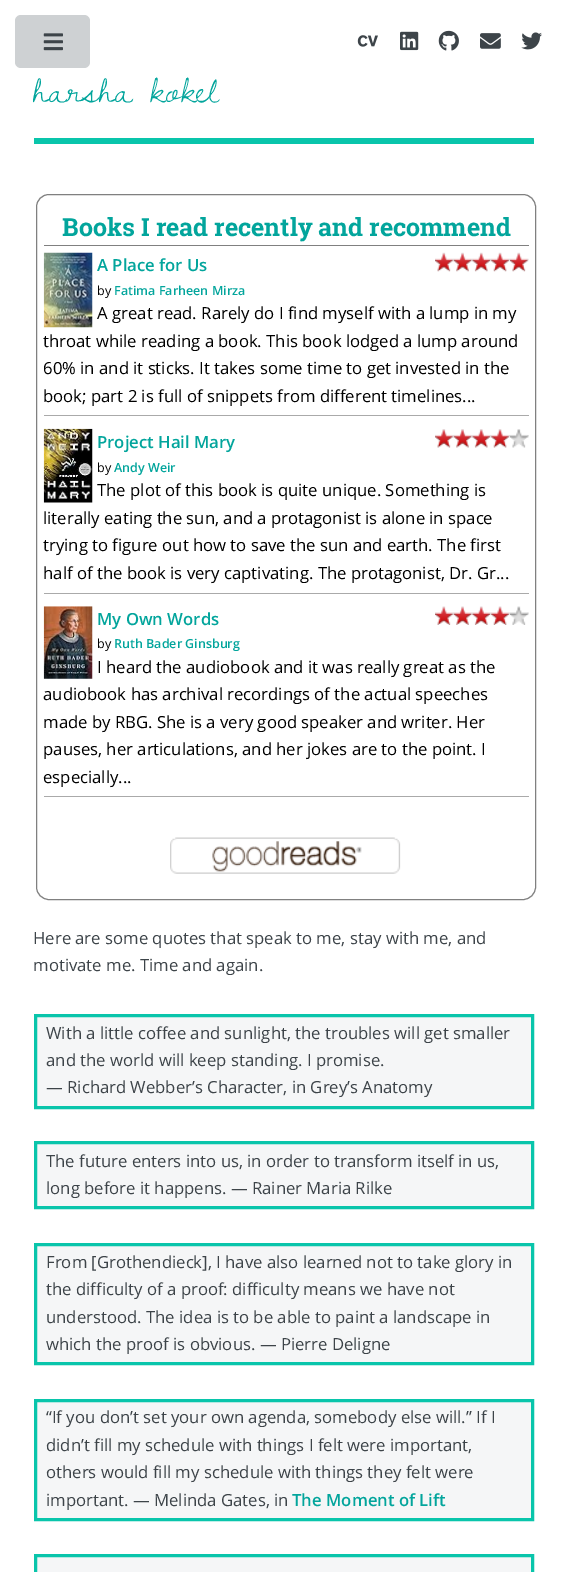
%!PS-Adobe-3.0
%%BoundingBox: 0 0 567 1572
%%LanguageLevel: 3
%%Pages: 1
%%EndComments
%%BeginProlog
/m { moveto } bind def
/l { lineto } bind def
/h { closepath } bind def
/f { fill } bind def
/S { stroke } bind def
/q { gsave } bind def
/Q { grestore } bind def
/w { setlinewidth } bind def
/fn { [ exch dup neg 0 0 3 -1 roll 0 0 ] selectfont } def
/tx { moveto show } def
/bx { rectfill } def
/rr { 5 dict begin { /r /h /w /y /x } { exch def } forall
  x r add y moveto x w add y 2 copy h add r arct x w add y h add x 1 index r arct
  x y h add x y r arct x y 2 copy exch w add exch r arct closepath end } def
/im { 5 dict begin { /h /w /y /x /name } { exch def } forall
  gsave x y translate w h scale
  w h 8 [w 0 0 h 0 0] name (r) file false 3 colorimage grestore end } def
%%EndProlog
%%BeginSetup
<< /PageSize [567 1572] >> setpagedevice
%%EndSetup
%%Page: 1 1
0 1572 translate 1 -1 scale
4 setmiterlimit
1 setgray
0 0 567 1572 bx
0.808 0.82 0.827 setrgbcolor
15 15 75 53 6 rr f
(image0.raw) 43 33 20 18 im
0.035 0.773 0.671 setrgbcolor
34 138 500 6 bx
(image1.raw) 357 35 21 12 im
(image2.raw) 400 31 19 20 im
(image3.raw) 438 30 21 21 im
(image4.raw) 480 33 21 16 im
(image5.raw) 521 32 21 18 im
/DawningofaNewDay-Regular 41.5 fn
0.008 0.647 0.612 setrgbcolor
(harsha kokel) 33 102 tx
0.502 setgray
36.5 194.5 499 705 12.5 rr S
44 245 485 1 bx
/RobotoSlab-Bold 25 fn
0.008 0.647 0.612 setrgbcolor
(Books I read recently and recommend) 62 236 tx
0.667 setgray
44 415 485 1 bx
(image6.raw) 43 252 50 76 im
/OpenSans-SemiBold 16.7 fn
0.008 0.647 0.612 setrgbcolor
(A Place for Us) 97 271 tx
(image7.raw) 435 252 19 20 im
(image8.raw) 453 252 20 20 im
(image9.raw) 472 252 20 20 im
(image10.raw) 491 252 19 20 im
(image11.raw) 510 252 19 20 im
/OpenSans-Regular 12.5 fn
0 setgray
(by) 97 295 tx
/OpenSans-SemiBold 12.5 fn
0.008 0.647 0.612 setrgbcolor
(Fatima Farheen Mirza) 114 295 tx
/OpenSans-Regular 16.7 fn
0 setgray
(A great read. Rarely do I find myself with a lump in my) 97 319 tx
(throat while reading a book. This book lodged a lump around) 43 347 tx
(60% in and it sticks. It takes some time to get invested in the) 43 374 tx
(book; part 2 is full of snippets from different timelines...) 43 402 tx
0.667 setgray
44 593 485 1 bx
(image12.raw) 43 428 50 75 im
/OpenSans-SemiBold 16.7 fn
0.008 0.647 0.612 setrgbcolor
(Project Hail Mary) 97 448 tx
(image13.raw) 435 429 19 19 im
(image14.raw) 453 429 20 19 im
(image15.raw) 472 429 20 19 im
(image16.raw) 491 429 19 19 im
(image17.raw) 510 429 19 19 im
/OpenSans-Regular 12.5 fn
0 setgray
(by) 97 472 tx
/OpenSans-SemiBold 12.5 fn
0.008 0.647 0.612 setrgbcolor
(Andy Weir) 114 472 tx
/OpenSans-Regular 16.7 fn
0 setgray
(The plot of this book is quite unique. Something is) 97 496 tx
(literally eating the sun, and a protagonist is alone in space) 43 524 tx
(trying to figure out how to save the sun and earth. The first) 43 551 tx
(half of the book is very captivating. The protagonist, Dr. Gr...) 43 579 tx
0.667 setgray
44 796 485 1 bx
(image18.raw) 43 606 50 73 im
/OpenSans-SemiBold 16.7 fn
0.008 0.647 0.612 setrgbcolor
(My Own Words) 97 625 tx
(image19.raw) 435 606 19 19 im
(image20.raw) 453 606 20 19 im
(image21.raw) 472 606 20 19 im
(image22.raw) 491 606 19 19 im
(image23.raw) 510 606 19 19 im
/OpenSans-Regular 12.5 fn
0 setgray
(by) 97 648 tx
/OpenSans-SemiBold 12.5 fn
0.008 0.647 0.612 setrgbcolor
(Ruth Bader Ginsburg) 114 648 tx
/OpenSans-Regular 16.7 fn
0 setgray
(I heard the audiobook and it was really great as the) 97 673 tx
(audiobook has archival recordings of the actual speeches) 43 700 tx
(made by RBG. She is a very good speaker and writer. Her) 43 728 tx
(pauses, her articulations, and her jokes are to the point. I) 43 755 tx
(especially...) 43 783 tx
(image24.raw) 170 837 231 37 im
0.239 0.267 0.286 setrgbcolor
(Here are some quotes that speak to me, stay with me, and) 33 944 tx
(motivate me. Time and again.) 33 971 tx
0.961 0.965 0.969 setrgbcolor
35.5 1015.5 m 532.5 1015.5 l 532.5 1107.5 l 35.5 1107.5 l h q f Q
0.035 0.773 0.671 setrgbcolor
3 w
S
0.239 0.267 0.286 setrgbcolor
(With a little coffee and sunlight, the troubles will get smaller) 46 1039 tx
(and the world will keep standing. I promise.) 46 1066 tx
(— Richard Webber’s Character, in Grey’s Anatomy) 46 1093 tx
0.961 0.965 0.969 setrgbcolor
35.5 1142.5 m 532.5 1142.5 l 532.5 1207.5 l 35.5 1207.5 l h q f Q
0.035 0.773 0.671 setrgbcolor
S
0.239 0.267 0.286 setrgbcolor
(The future enters into us, in order to transform itself in us,) 46 1167 tx
(long before it happens. — Rainer Maria Rilke) 46 1194 tx
0.961 0.965 0.969 setrgbcolor
35.5 1244.5 m 532.5 1244.5 l 532.5 1363.5 l 35.5 1363.5 l h q f Q
0.035 0.773 0.671 setrgbcolor
S
0.239 0.267 0.286 setrgbcolor
(From [Grothendieck], I have also learned not to take glory in) 46 1268 tx
(the difficulty of a proof: difficulty means we have not) 46 1295 tx
(understood. The idea is to be able to paint a landscape in) 46 1323 tx
(which the proof is obvious. — Pierre Deligne) 46 1350 tx
0.961 0.965 0.969 setrgbcolor
35.5 1400.5 m 532.5 1400.5 l 532.5 1519.5 l 35.5 1519.5 l h q f Q
0.035 0.773 0.671 setrgbcolor
S
0.239 0.267 0.286 setrgbcolor
(“If you don’t set your own agenda, somebody else will.” If I) 46 1423 tx
(didn’t fill my schedule with things I felt were important,) 46 1451 tx
(others would fill my schedule with things they felt were) 46 1478 tx
(important. — Melinda Gates, in) 46 1506 tx
/OpenSans-SemiBold 16.7 fn
0.008 0.647 0.612 setrgbcolor
(The Moment of Lift) 292 1506 tx
0.961 0.965 0.969 setrgbcolor
35.5 1555.5 m 532.5 1555.5 l 532.5 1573.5 l 35.5 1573.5 l h q f Q
0.035 0.773 0.671 setrgbcolor
S
showpage
%%EOF
